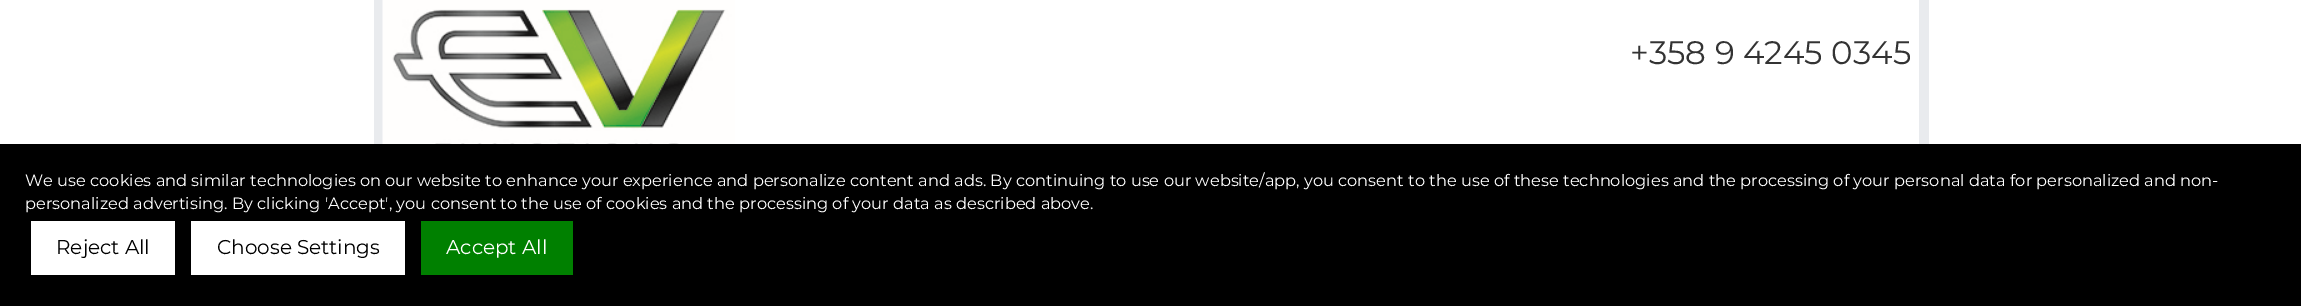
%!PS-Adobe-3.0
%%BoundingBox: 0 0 2301 306
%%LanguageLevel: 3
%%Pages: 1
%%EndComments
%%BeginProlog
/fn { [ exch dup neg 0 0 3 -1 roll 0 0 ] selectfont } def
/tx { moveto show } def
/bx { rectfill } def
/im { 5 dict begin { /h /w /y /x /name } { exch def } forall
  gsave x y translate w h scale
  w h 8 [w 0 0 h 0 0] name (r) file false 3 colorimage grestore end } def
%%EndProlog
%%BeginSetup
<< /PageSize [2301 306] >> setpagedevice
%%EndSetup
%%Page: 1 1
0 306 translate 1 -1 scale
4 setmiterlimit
1 setgray
0 0 2301 306 bx
0.914 0.922 0.933 setrgbcolor
374 0 1555 144 bx
1 setgray
735 0 1184 144 bx
(image0.raw) 382 0 353 144 im
/Montserrat-Regular 32.5 fn
0.2 setgray
(+358 9 4245 0345) 1630 64 tx
0 setgray
0 144 2301 162 bx
/Montserrat-Regular 16.25 fn
1 setgray
(We use cookies and similar technologies on our website to enhance your experience and personalize content and ads. By continuing to use our website/app, you consent to the use of these technologies and the processing of your personal data for personalized and non-) 25 186 tx
(personalized advertising. By clicking 'Accept', you consent to the use of cookies and the processing of your data as described above.) 25 209 tx
31 221 144 54 bx
/Montserrat-Regular 20 fn
0 setgray
(Reject All) 56 254 tx
1 setgray
191 221 214 54 bx
0 setgray
(Choose Settings) 217 254 tx
0 0.502 0 setrgbcolor
421 221 152 54 bx
1 setgray
(Accept All) 446 254 tx
showpage
%%EOF
